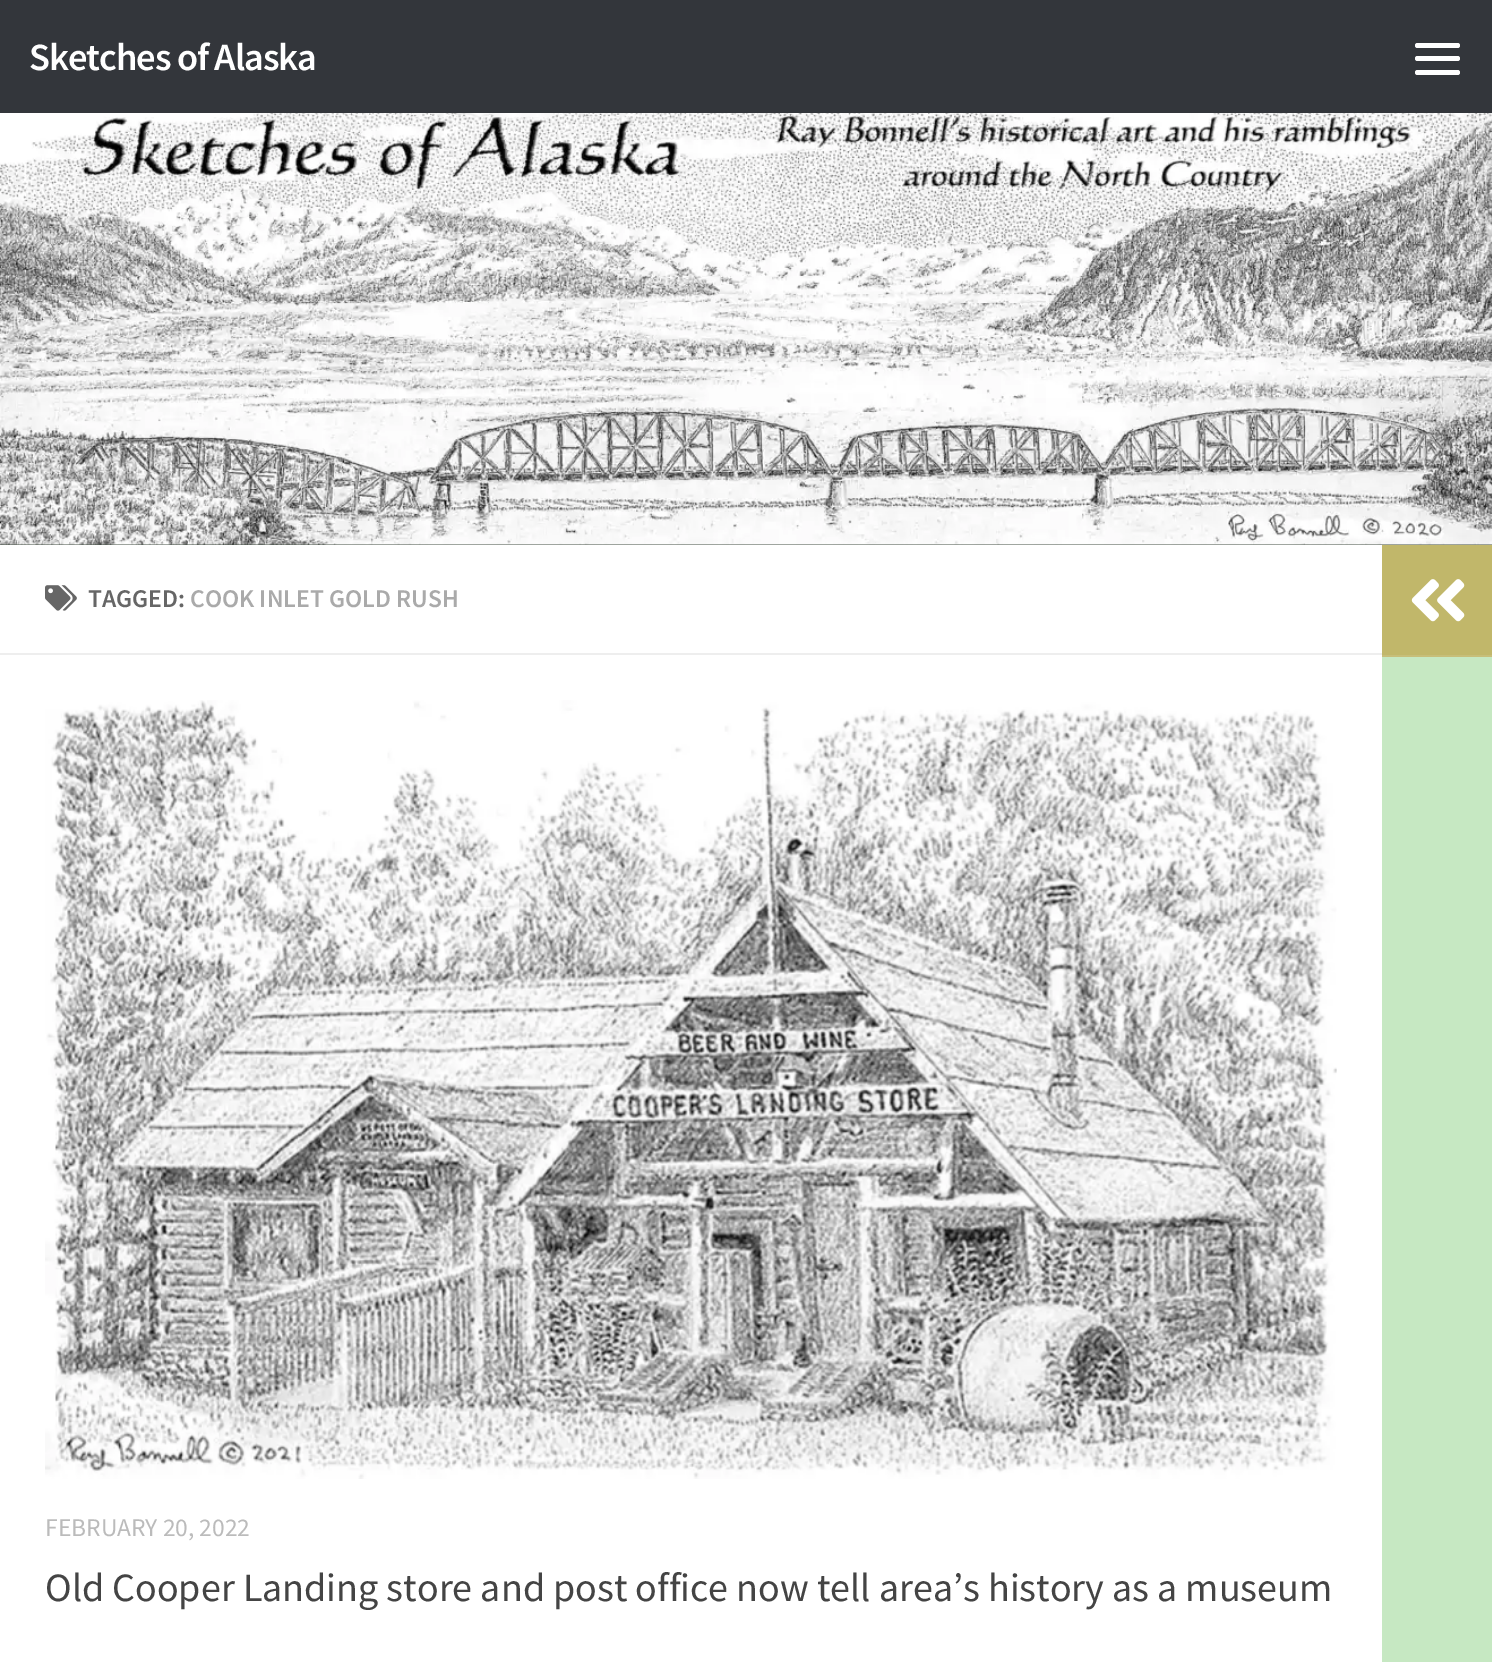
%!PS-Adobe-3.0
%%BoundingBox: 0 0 1492 1662
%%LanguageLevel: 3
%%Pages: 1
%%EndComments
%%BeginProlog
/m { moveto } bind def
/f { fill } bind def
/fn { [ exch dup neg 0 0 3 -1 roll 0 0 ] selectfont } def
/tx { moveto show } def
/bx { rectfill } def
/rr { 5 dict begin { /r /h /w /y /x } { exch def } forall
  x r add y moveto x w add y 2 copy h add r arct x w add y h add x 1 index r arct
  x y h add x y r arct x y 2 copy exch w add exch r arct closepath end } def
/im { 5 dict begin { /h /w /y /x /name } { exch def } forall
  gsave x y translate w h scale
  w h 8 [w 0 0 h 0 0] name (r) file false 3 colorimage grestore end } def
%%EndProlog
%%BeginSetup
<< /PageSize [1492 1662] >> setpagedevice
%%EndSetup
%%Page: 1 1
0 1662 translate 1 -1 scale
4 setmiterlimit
1 setgray
0 0 1492 1662 bx
0.259 0.31 0.263 setrgbcolor
0 544 1492 1 bx
0.2 0.212 0.231 setrgbcolor
0 0 1492 113 bx
/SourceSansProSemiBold-SemiBold 38.5 fn
1 setgray
29 70 m -1.1 0 (Sketches of Alaska) ashow
1415 43 45 5 2.5 rr f
1415 56 45 5 2.5 rr f
1415 70 45 5 2.5 rr f
(image0.raw) 0 113 1492 432 im
0.933 setgray
0 653 1382 2 bx
(image1.raw) 45 585 32 26 im
/SourceSansProSemiBold-SemiBold 25.5 fn
0.4 setgray
(TAGGED:) 88 607 tx
0.667 setgray
(COOK INLET GOLD RUSH) 190 607 tx
(image2.raw) 45 700 1292 779 im
/SourceSansPro-Regular 25.5 fn
0.733 setgray
(FEBRUARY 20, 2022) 45 1536 tx
/SourceSansPro-Regular 40.1 fn
0.267 setgray
(Old Cooper Landing store and post office now tell area’s history as a museum) 45 1601 tx
0.757 0.718 0.416 setrgbcolor
1382 545 110 110 bx
0.78 0.745 0.475 setrgbcolor
1382 655 110 2 bx
(image3.raw) 1411 579 54 43 im
0.776 0.91 0.761 setrgbcolor
1382 657 110 1005 bx
showpage
%%EOF
